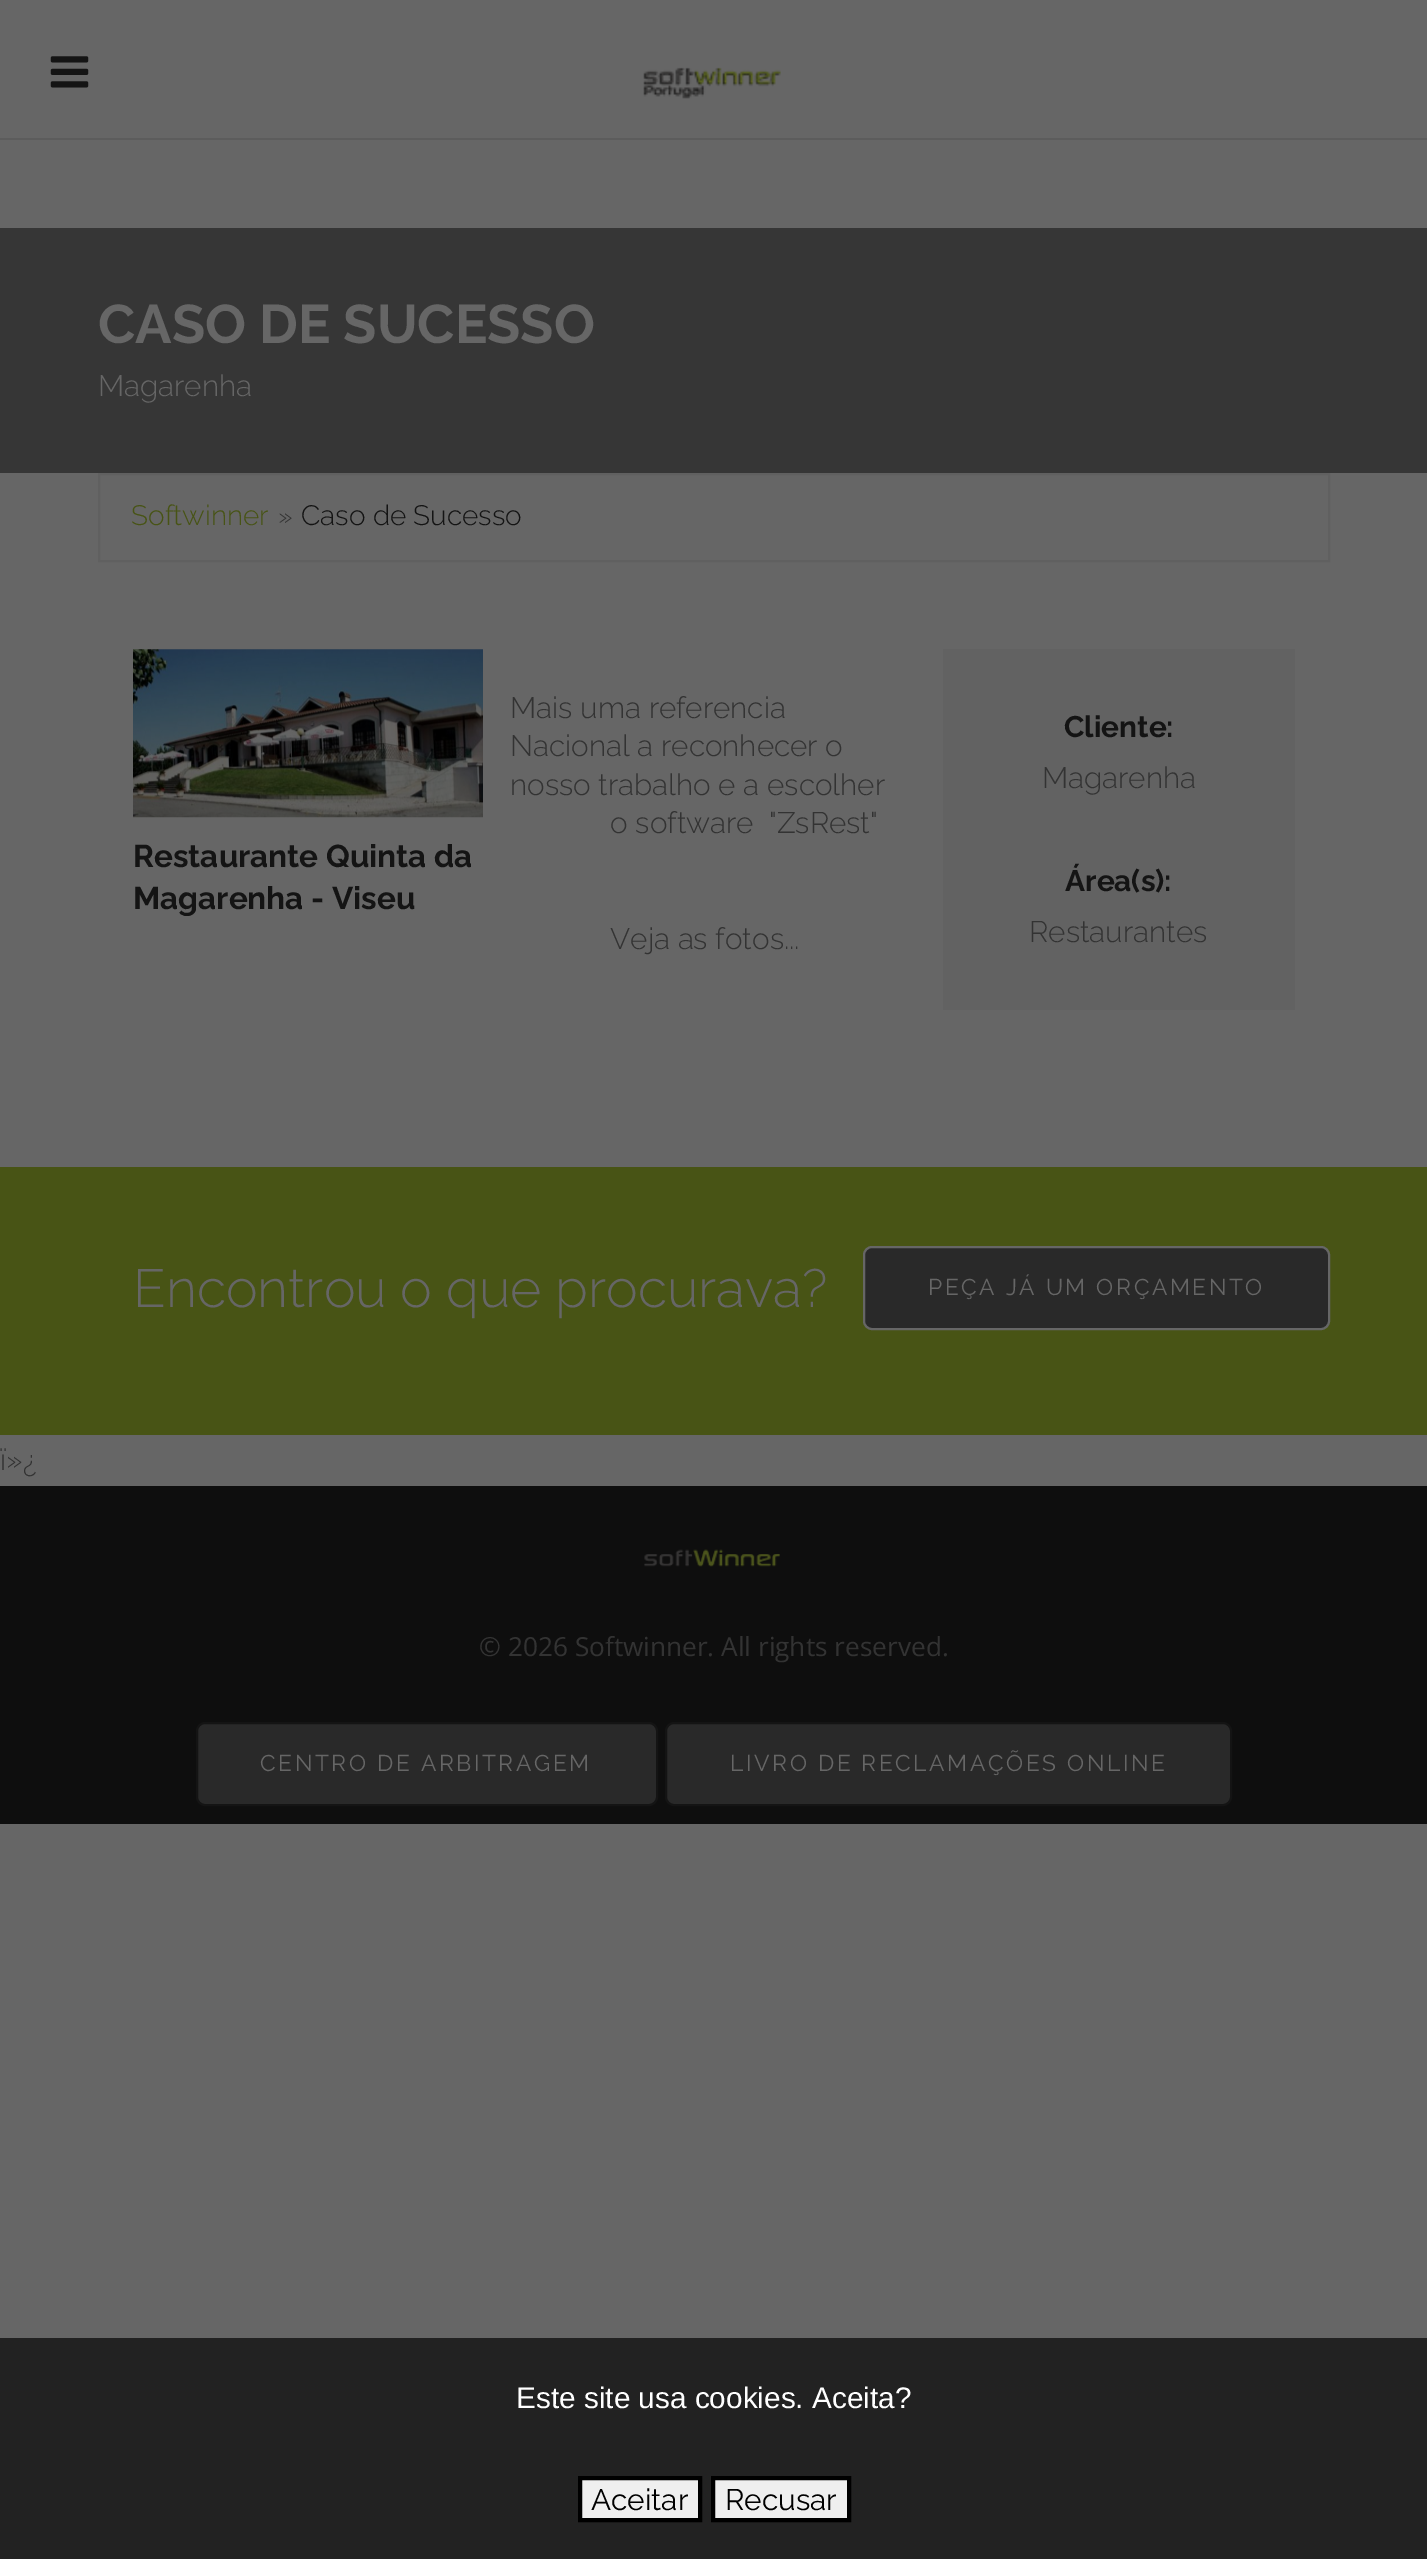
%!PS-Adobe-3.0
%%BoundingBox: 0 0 1427 2559
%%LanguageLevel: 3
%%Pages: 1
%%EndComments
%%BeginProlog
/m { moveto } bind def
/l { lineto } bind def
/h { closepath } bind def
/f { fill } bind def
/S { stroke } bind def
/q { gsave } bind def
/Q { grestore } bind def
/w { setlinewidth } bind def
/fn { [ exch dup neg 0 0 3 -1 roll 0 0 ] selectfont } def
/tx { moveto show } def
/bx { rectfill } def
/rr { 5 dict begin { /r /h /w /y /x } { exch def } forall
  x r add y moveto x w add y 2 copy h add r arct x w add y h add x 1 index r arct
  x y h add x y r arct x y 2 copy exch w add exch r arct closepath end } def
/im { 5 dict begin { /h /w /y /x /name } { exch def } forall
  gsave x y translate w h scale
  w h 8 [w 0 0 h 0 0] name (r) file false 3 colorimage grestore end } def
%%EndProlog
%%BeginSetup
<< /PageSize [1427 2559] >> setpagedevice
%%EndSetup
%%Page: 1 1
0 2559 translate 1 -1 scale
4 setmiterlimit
0.4 setgray
0 0 1427 2559 bx
0.361 setgray
0 138 1427 2 bx
(image0.raw) 50 56 39 32 im
(image1.raw) 643 67 138 32 im
0.212 setgray
0 228 1427 245 bx
/Raleway-Bold 54.25 fn
0.4 setgray
(CASO DE SUCESSO) 98 343 tx
/Raleway-Light 29.75 fn
(Magarenha) 98 396 tx
0.376 setgray
2 w
99 474 1230 87 rectstroke
/Raleway-Light 28 fn
0.282 0.329 0.082 setrgbcolor
(Softwinner) 131 525 tx
/Raleway-Light 26.25 fn
0.2 setgray
(») 278 525 tx
/Raleway-Light 28 fn
0.078 setgray
(Caso de Sucesso) 301 525 tx
(image2.raw) 133 649 350 169 im
/Raleway-Light 29.75 fn
0.2 setgray
(Mais uma referencia) 510 718 tx
(Nacional a reconhecer o) 510 756 tx
(nosso trabalho e a escolher) 510 795 tx
(o software  "ZsRest") 610 833 tx
/Raleway-Bold 31.5 fn
0.078 setgray
(Restaurante Quinta da) 133 867 tx
(Magarenha - Viseu) 133 909 tx
/Raleway-Light 29.75 fn
0.2 setgray
(Veja as fotos...) 610 949 tx
0.384 setgray
943 649 352 361 bx
/Raleway-Bold 29.75 fn
0.078 setgray
(Cliente:) 1064 737 tx
/Raleway-Light 29.75 fn
0.2 setgray
(Magarenha) 1042 788 tx
/Raleway-Bold 29.75 fn
0.078 setgray
(Área\(s\):) 1065 891 tx
/Raleway-Light 29.75 fn
0.2 setgray
(Restaurantes) 1029 942 tx
0.282 0.329 0.082 setrgbcolor
0 1167 1427 268 bx
/Raleway-Light 53.5 fn
0.4 setgray
(Encontrou o que procurava?) 133 1307 tx
0.161 setgray
864 1247 465 82 8 rr q f Q
0.4 setgray
S
/Raleway-Regular 22.75 fn
928 1295 m 2.6 0 (PEÇA JÁ UM ORÇAMENTO) ashow
/Raleway-Light 29.75 fn
0.2 setgray
(ï»¿) 0 1470 tx
0.055 setgray
0 1486 1427 338 bx
(image3.raw) 644 1549 136 18 im
/OpenSans-Regular 26.25 fn
0.2 setgray
(© 2026 Softwinner. All rights reserved.) 479 1656 tx
0.161 setgray
197 1723 460 82 8 rr q f Q
0.078 setgray
S
/Raleway-Regular 22.75 fn
0.4 setgray
260 1771 m 2.6 0 (CENTRO DE ARBITRAGEM) ashow
0.161 setgray
666 1723 565 82 8 rr q f Q
0.078 setgray
S
0.4 setgray
730 1771 m 2.6 0 (LIVRO DE RECLAMAÇÕES ONLINE) ashow
0.133 setgray
0 2338 1427 221 bx
/LiberationSans-Regular 29.75 fn
1 setgray
(Este site usa cookies. Aceita?) 516 2408 tx
0.937 setgray
580 2478 m 700 2478 l 700 2520 l 580 2520 l h q f Q
0 setgray
4 w
S
/Raleway-Regular 29.75 fn
(Aceitar) 591 2510 tx
0.937 setgray
713 2478 m 849 2478 l 849 2520 l 713 2520 l h q f Q
0 setgray
S
(Recusar) 725 2510 tx
showpage
%%EOF
